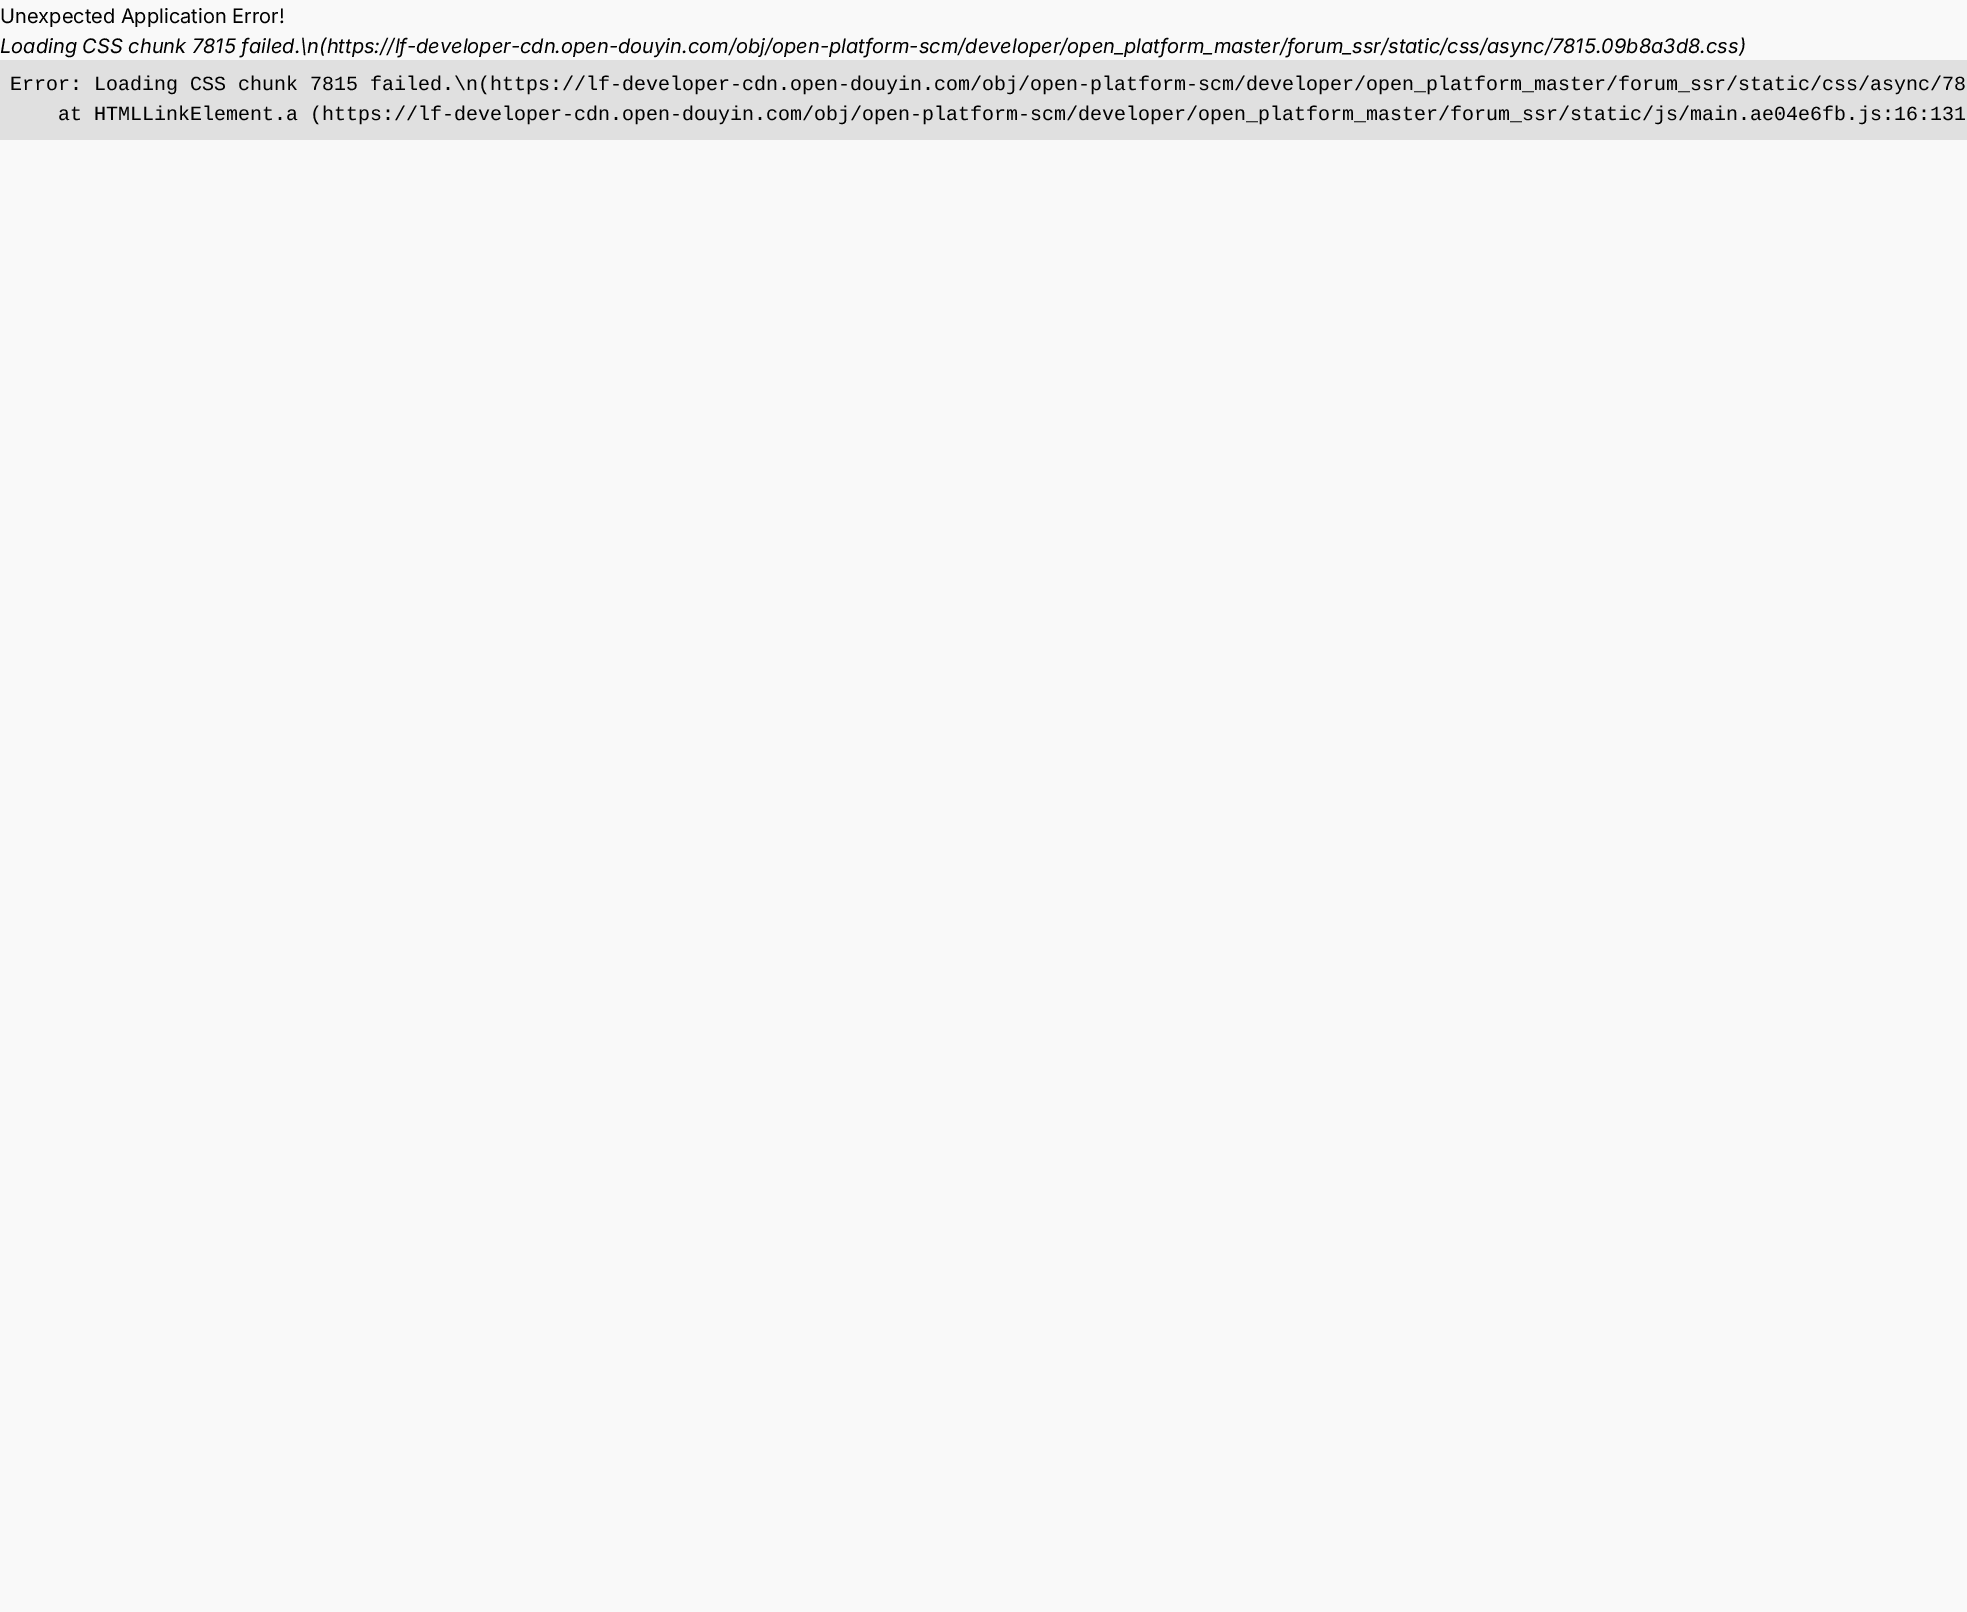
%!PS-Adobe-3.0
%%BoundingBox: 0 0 1967 1612
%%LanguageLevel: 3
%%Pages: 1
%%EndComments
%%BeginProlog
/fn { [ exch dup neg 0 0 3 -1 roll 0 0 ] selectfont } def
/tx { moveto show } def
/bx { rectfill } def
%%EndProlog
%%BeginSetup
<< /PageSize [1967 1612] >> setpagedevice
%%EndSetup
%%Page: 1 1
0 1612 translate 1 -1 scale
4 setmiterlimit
0.976 setgray
0 0 1967 1612 bx
/Inter-Regular 20 fn
0 setgray
(Unexpected Application Error!) 0 23 tx
/Inter-Italic 20 fn
(Loading CSS chunk 7815 failed.\\n\(https://lf-developer-cdn.open-douyin.com/obj/open-platform-scm/developer/open_platform_master/forum_ssr/static/css/async/7815.09b8a3d8.css\)) 0 53 tx
0.878 setgray
0 60 1967 80 bx
/LiberationMono-Regular 20 fn
0 setgray
(Error: Loading CSS chunk 7815 failed.\\n\(https://lf-developer-cdn.open-douyin.com/obj/open-platform-scm/developer/open_platform_master/forum_ssr/static/css/async/78) 10 90 tx
(at HTMLLinkElement.a \(https://lf-developer-cdn.open-douyin.com/obj/open-platform-scm/developer/open_platform_master/forum_ssr/static/js/main.ae04e6fb.js:16:131) 58 120 tx
showpage
%%EOF
